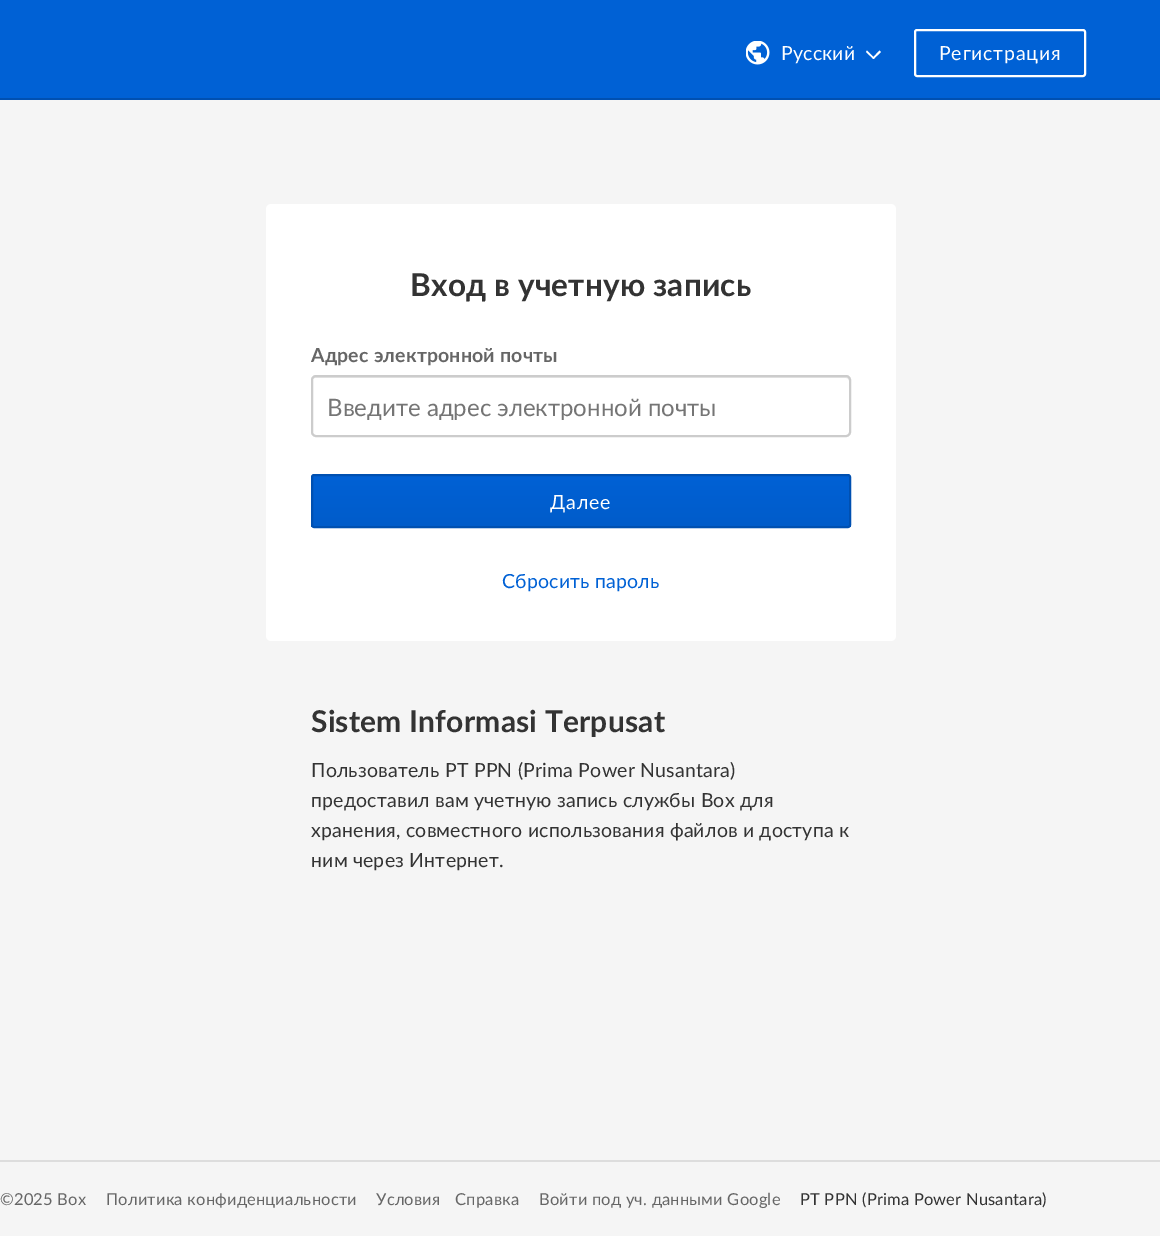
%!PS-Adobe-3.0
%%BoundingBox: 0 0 1160 1236
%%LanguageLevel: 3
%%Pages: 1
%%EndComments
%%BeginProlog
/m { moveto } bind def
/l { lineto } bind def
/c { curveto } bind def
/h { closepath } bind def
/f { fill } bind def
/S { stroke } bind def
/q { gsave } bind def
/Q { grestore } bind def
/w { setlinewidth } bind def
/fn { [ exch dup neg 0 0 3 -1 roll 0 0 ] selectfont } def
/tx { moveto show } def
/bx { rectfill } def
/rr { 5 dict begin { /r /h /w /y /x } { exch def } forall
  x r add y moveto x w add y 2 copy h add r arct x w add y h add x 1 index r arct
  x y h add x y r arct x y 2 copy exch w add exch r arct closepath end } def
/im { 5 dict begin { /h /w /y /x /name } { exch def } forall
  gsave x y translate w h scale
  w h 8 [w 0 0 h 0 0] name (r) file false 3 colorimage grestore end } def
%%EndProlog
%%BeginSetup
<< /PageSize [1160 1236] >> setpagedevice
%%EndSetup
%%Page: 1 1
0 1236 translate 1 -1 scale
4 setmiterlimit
0.961 setgray
0 0 1160 1236 bx
0 0.38 0.835 setrgbcolor
0 0 1160 98 bx
0 0.314 0.694 setrgbcolor
0 98 1160 2 bx
(image0.raw) 746 41 24 24 im
/Lato-Regular 19.5 fn
1 setgray
781 60 m 0.2 0 (Русский) ashow
879.5 50.5 m 881 52 l 873.5 59 l 872.5 58 l h f
867 50.5 m 874.5 58 l 873.5 59 l 866 52 l h f
2 w
915 30 170 46 2 rr S
939 60 m 0.75 0 (Регистрация) ashow
266 204 630 437 5 rr f
/Lato-Bold 31.5 fn
0.2 setgray
410 296 m 0.2 0 (Вход в учетную запись) ashow
/Lato-Bold 19.5 fn
0.4 setgray
311 362 m 0.2 0 (Адрес электронной почты) ashow
0.902 setgray
315 378 m 846 378 l 848 378 849 379 849 381 c 849 380 l 849 378 848 377 846 377 c 315 377 l 313 377 312 378 312 380 c 312 381 l 312 379 313 378 315 378 c h f
0.8 setgray
312 376 538 60 4 rr S
q
327 392 507 28 rectclip
/Lato-Regular 24 fn
0.459 setgray
(Введите адрес электронной почты) 327 416 tx
Q
q
311 474 540 54 3 rr clip newpath
q 311 476 m 851 476 l 851 527 l 311 527 l h clip newpath
<< /ShadingType 2 /ColorSpace /DeviceRGB /Coords [581 476 581 527] /Extend [true true] /Function << /FunctionType 2 /Domain [0 1] /C0 [0 0.38 0.835] /C1 [0 0.361 0.792] /N 1 >> >> shfill Q
Q
0 0.314 0.694 setrgbcolor
312 475 538 52 2 rr S
/Lato-Regular 19.5 fn
1 setgray
550 509 m 0.75 0 (Далее) ashow
0 0.38 0.835 setrgbcolor
502 588 m 0.2 0 (Сбросить пароль) ashow
/Lato-Bold 30 fn
0.2 setgray
311 732 m 0.2 0 (Sistem Informasi Terpusat) ashow
/Lato-Regular 19.5 fn
311 777 m 0.2 0 (Пользователь PT PPN \(Prima Power Nusantara\)) ashow
311 807 m 0.2 0 (предоставил вам учетную запись службы Box для) ashow
311 837 m 0.2 0 (хранения, совместного использования файлов и доступа к) ashow
311 867 m 0.2 0 (ним через Интернет.) ashow
0.867 setgray
0 1160 1160 2 bx
/Lato-Regular 16.5 fn
0.4 setgray
0 1205 m 0.2 0 (©2025 Box) ashow
106 1205 m 0.2 0 (Политика конфиденциальности) ashow
376 1205 m 0.2 0 (Условия) ashow
455 1205 m 0.2 0 (Справка) ashow
539 1205 m 0.2 0 (Войти под уч. данными Google) ashow
0.2 setgray
800 1205 m 0.2 0 (PT PPN \(Prima Power Nusantara\)) ashow
showpage
%%EOF
